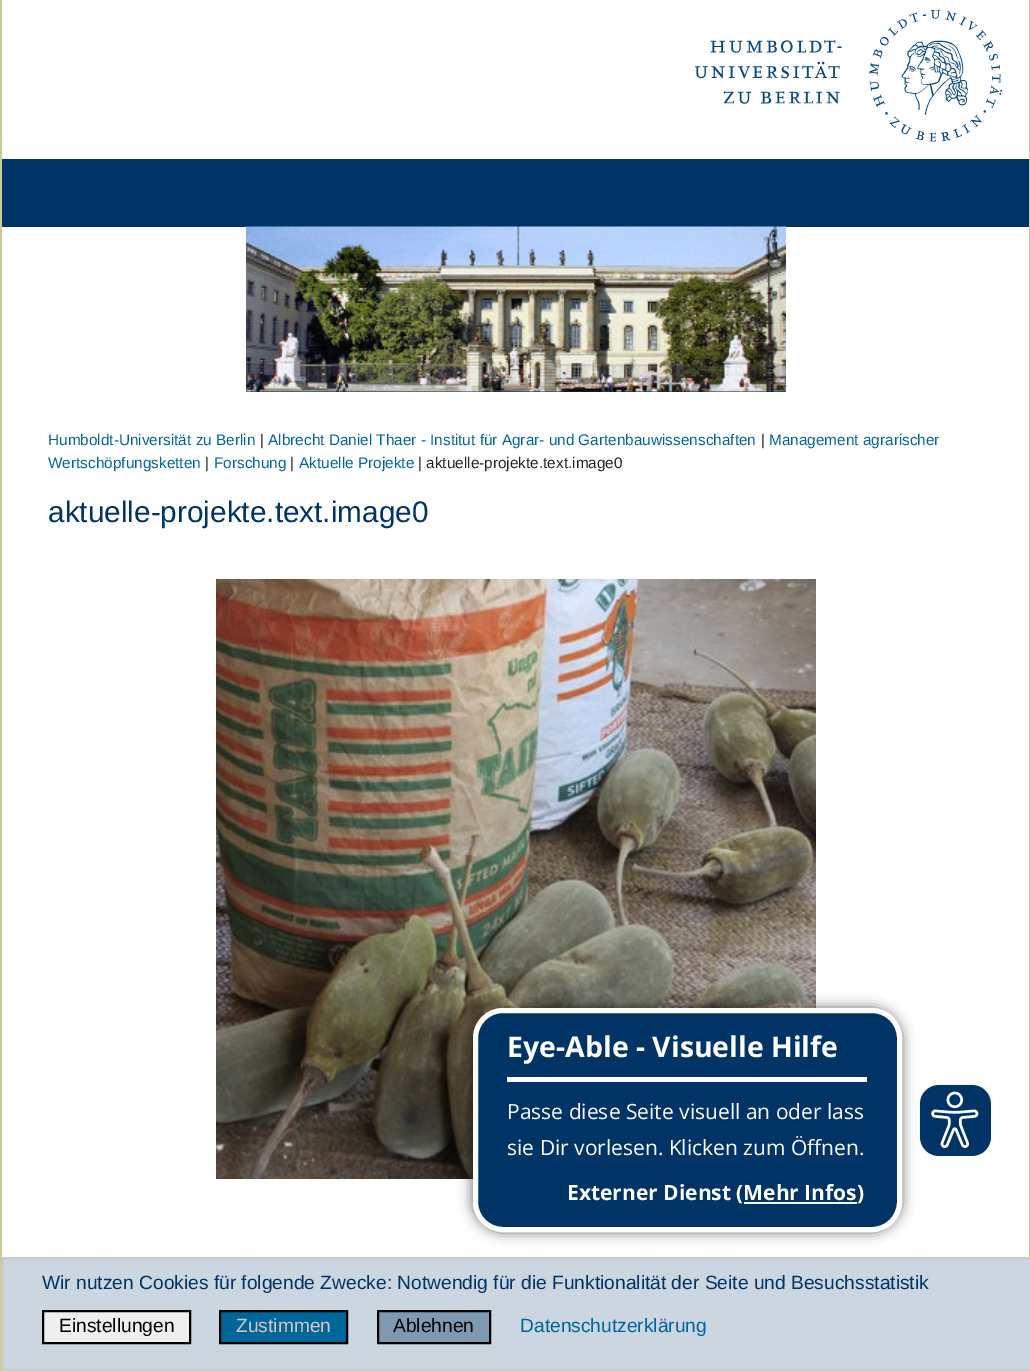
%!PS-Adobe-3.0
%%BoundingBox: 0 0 1030 1371
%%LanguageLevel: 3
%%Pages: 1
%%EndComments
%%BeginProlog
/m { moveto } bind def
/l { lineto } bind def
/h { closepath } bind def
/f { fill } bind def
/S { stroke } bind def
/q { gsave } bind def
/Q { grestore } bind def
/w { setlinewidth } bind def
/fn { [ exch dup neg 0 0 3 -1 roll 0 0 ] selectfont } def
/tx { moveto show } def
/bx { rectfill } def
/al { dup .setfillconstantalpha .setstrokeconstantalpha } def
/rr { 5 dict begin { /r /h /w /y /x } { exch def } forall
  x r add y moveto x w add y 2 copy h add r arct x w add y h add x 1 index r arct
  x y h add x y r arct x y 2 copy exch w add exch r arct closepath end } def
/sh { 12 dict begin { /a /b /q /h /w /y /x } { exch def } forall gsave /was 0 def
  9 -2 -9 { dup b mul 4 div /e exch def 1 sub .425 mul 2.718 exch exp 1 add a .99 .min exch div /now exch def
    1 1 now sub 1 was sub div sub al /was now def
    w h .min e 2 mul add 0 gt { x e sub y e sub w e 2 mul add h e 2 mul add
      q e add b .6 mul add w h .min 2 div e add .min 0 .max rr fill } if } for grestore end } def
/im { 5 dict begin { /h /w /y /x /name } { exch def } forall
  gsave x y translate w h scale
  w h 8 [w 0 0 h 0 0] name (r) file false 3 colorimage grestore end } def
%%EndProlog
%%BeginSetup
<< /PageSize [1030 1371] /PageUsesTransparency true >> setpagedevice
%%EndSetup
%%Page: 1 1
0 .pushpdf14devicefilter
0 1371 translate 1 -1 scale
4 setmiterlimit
1 setgray
0 0 1030 1371 bx
(image0.raw) 695 10 308 132 im
0 0.2 0.4 setrgbcolor
2 159 1027 68 bx
246 391 540 1 bx
(image1.raw) 246 226 540 166 im
0.8 0.8 0.6 setrgbcolor
1029 0 1 1257 bx
0 0 2 1371 bx
/LiberationSans-Regular 15.35 fn
0 0.4 0.6 setrgbcolor
(Humboldt-Universität zu Berlin) 48 445 tx
0.129 0.145 0.161 setrgbcolor
(|) 260 445 tx
0 0.4 0.6 setrgbcolor
(Albrecht Daniel Thaer - Institut für Agrar- und Gartenbauwissenschaften) 268 445 tx
0.129 0.145 0.161 setrgbcolor
(|) 761 445 tx
0 0.4 0.6 setrgbcolor
(Management agrarischer) 769 445 tx
(Wertschöpfungsketten) 48 468 tx
0.129 0.145 0.161 setrgbcolor
(|) 205 468 tx
0 0.4 0.6 setrgbcolor
(Forschung) 214 468 tx
0.129 0.145 0.161 setrgbcolor
(|) 290 468 tx
0 0.4 0.6 setrgbcolor
(Aktuelle Projekte) 299 468 tx
0.129 0.145 0.161 setrgbcolor
(| aktuelle-projekte.text.image0) 418 468 tx
/LiberationSans-Regular 29.75 fn
0 0.2 0.4 setrgbcolor
(aktuelle-projekte.text.image0) 48 522 tx
(image2.raw) 216 579 600 600 im
0 setgray
471 1007 432 226 32 6 0.5 sh
0 0.2 0.4 setrgbcolor
475.5 1010.5 424 219 27.5 rr q f Q
1 setgray
5 w
S
507 1077 360 5 bx
/OpenSans-Bold 28.5 fn
(Eye-Able - Visuelle Hilfe) 507 1057 tx
/OpenSans-Regular 21 fn
(Passe diese Seite visuell an oder lass) 507 1119 tx
(sie Dir vorlesen. Klicken zum Öffnen.) 507 1155 tx
/OpenSans-Bold 21 fn
(Externer Dienst \(Mehr Infos\)) 567 1200 tx
744 1202 113 2 bx
(image3.raw) 919 1084 72 72 im
0.8 0.839 0.878 setrgbcolor
3 1258 m 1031 1258 l 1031 1370 l 3 1370 l h q f Q
0.8 setgray
2 w
S
/LiberationSans-Regular 19.2 fn
0 0.2 0.4 setrgbcolor
(Wir nutzen Cookies für folgende Zwecke: Notwendig für die Funktionalität der Seite und Besuchsstatistik) 42 1289 tx
0.937 setgray
43 1311 m 190 1311 l 190 1343 l 43 1343 l h q f Q
0 setgray
S
(Einstellungen) 59 1332 tx
0 0.4 0.6 setrgbcolor
220 1311 m 347 1311 l 347 1343 l 220 1343 l h q f Q
0 setgray
S
0.835 0.78 0.78 setrgbcolor
(Zustimmen) 236 1332 tx
0.502 0.6 0.698 setrgbcolor
378 1311 m 490 1311 l 490 1343 l 378 1343 l h q f Q
0 setgray
S
(Ablehnen) 393 1332 tx
0 0.4 0.6 setrgbcolor
(Datenschutzerklärung) 520 1332 tx
.poppdf14devicefilter showpage
%%EOF
